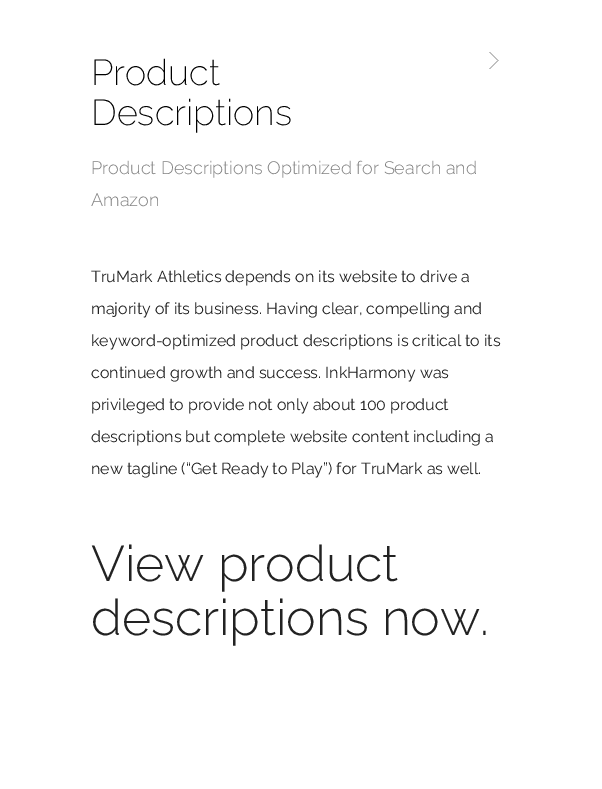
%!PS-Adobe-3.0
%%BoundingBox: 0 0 602 789
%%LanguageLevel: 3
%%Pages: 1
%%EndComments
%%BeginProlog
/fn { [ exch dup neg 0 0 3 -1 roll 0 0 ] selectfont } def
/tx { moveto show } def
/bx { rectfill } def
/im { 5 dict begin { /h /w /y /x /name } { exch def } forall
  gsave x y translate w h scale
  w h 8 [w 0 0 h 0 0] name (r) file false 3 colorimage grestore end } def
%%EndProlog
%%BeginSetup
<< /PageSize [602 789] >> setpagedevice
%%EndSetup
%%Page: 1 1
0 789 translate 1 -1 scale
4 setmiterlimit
1 setgray
0 0 602 789 bx
/Raleway-ExtraLight 36 fn
0 setgray
(Product) 91 85 tx
(Descriptions) 91 125 tx
/Raleway-Light 18 fn
0.502 setgray
(Product Descriptions Optimized for Search and) 91 174 tx
(Amazon) 91 206 tx
(image0.raw) 489 52 10 17 im
/Raleway-Regular 16 fn
0.133 setgray
(TruMark Athletics depends on its website to drive a) 91 282 tx
(majority of its business. Having clear, compelling and) 91 314 tx
(keyword-optimized product descriptions is critical to its) 91 346 tx
(continued growth and success. InkHarmony was) 91 378 tx
(privileged to provide not only about 100 product) 91 410 tx
(descriptions but complete website content including a) 91 442 tx
(new tagline \(“Get Ready to Play”\) for TruMark as well.) 91 474 tx
/Raleway-Light 50 fn
(View product) 91 581 tx
(descriptions now.) 91 635 tx
showpage
%%EOF
